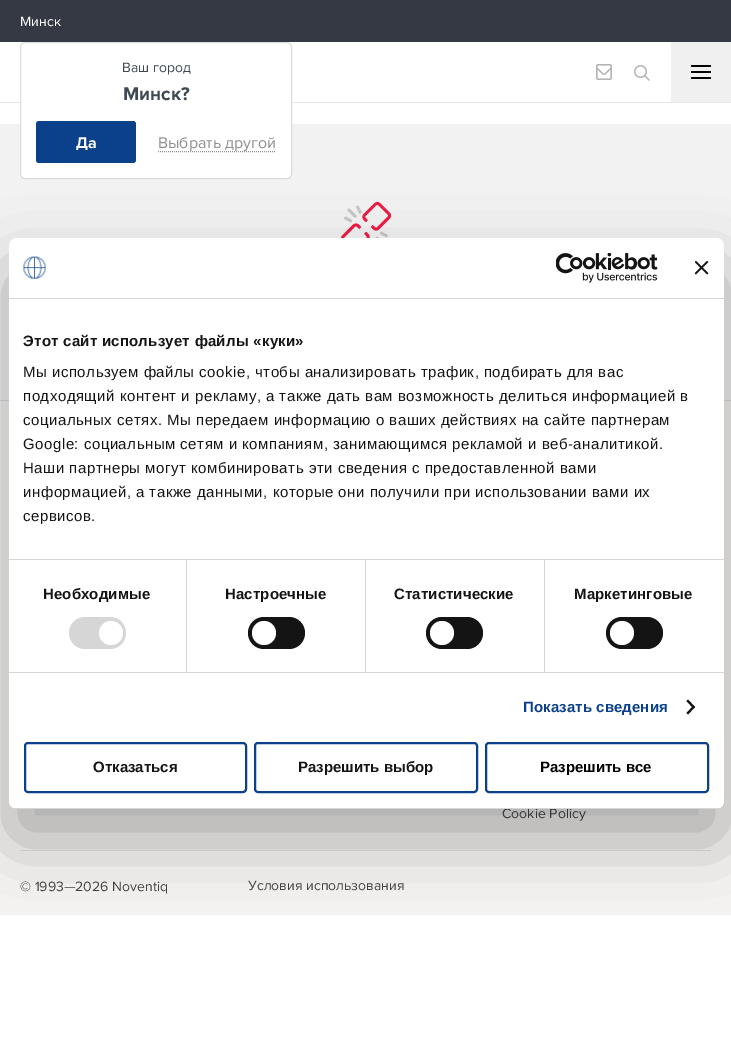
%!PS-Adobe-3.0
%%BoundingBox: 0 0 731 1046
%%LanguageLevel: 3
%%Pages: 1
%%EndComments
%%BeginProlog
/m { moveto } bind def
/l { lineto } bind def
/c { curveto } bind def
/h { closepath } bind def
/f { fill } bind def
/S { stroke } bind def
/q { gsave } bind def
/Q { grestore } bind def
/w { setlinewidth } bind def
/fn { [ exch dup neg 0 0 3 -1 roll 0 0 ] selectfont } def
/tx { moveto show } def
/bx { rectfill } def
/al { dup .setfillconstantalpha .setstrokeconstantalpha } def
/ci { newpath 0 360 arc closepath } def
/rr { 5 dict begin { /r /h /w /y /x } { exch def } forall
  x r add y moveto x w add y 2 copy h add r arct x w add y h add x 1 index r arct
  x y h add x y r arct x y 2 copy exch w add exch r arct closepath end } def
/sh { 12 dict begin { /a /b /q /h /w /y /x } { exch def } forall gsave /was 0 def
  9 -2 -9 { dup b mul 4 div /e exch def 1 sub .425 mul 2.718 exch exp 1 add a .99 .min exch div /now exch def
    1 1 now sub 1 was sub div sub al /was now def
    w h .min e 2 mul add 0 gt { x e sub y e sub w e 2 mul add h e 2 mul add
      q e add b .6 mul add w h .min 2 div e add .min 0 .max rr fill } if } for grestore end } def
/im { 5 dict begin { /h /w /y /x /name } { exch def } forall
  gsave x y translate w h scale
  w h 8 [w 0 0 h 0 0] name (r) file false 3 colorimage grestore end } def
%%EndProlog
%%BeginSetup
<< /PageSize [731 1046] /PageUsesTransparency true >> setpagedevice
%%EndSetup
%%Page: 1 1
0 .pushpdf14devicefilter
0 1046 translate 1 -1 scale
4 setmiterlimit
1 setgray
0 0 731 1046 bx
0.204 0.224 0.263 setrgbcolor
0 0 731 42 bx
/ProximaNova-Regular 14 fn
1 setgray
(Минск) 20 26 tx
0.898 setgray
0 102 731 1 bx
0.949 setgray
0 124 731 276 bx
1 setgray
20.5 42.5 271 136 4.5 rr q f Q
0.867 setgray
S
0.243 0.286 0.325 setrgbcolor
(Ваш город) 122 72 tx
/ProximaNova-Bold 19 fn
(Минск?) 123 100 tx
0.043 0.251 0.545 setrgbcolor
36 121 100 42 3 rr f
/ProximaNova-Bold 16 fn
1 setgray
(Да) 76 148 tx
0.561 setgray
[1 1] 0 setdash
158 151.5 m 276 151.5 l S
/ProximaNova-Regular 16 fn
(Выбрать другой) 158 148 tx
(image0.raw) 596 64 16 16 im
(image1.raw) 634 65 16 16 im
0.941 setgray
671 42 60 60 bx
0 setgray
692 65 m 701 65 l 701 67 l 692 67 l 691.5 67 691 66.5 691 66 c 691 65.5 691.5 65 692 65 c h f
701 65 m 710 65 l 710.5 65 711 65.5 711 66 c 711 66.5 710.5 67 710 67 c 701 67 l h f
692 71 m 701 71 l 701 73 l 692 73 l 691.5 73 691 72.5 691 72 c 691 71.5 691.5 71 692 71 c h f
701 71 m 710 71 l 710.5 71 711 71.5 711 72 c 711 72.5 710.5 73 710 73 c 701 73 l h f
692 77 m 701 77 l 701 79 l 692 79 l 691.5 79 691 78.5 691 78 c 691 77.5 691.5 77 692 77 c h f
701 77 m 710 77 l 710.5 77 711 77.5 711 78 c 711 78.5 710.5 79 710 79 c 701 79 l h f
0.855 setgray
0 400 731 1 bx
(image2.raw) 341 202 50 36 im
0.961 0.957 0.949 setrgbcolor
0 401 731 514 bx
/ProximaNova-Regular 14 fn
0.267 setgray
(Cookie Policy) 502 818 tx
0.867 setgray
20 850 691 1 bx
0.267 setgray
(© 1993—2026 Noventiq) 20 891 tx
(Условия использования) 248 890 tx
0 setgray
9 270 715 571 8 34 0.3 sh
1 setgray
9 238 715 571 8 rr f
0.839 setgray
9 298 715 1 bx
(image3.raw) 23 256 23 24 im
(image4.raw) 556 253 102 30 im
(image5.raw) 695 261 14 14 im
9 559 715 1 bx
/LiberationSans-Bold 15 fn
0.078 setgray
23 346 m 0.25 0 (Этот сайт использует файлы «куки») ashow
/LiberationSans-Regular 15 fn
23 377 m 0.5 0 (Мы используем файлы cookie, чтобы анализировать трафик, подбирать для вас) ashow
23 401 m 0.5 0 (подходящий контент и рекламу, а также дать вам возможность делиться информацией в) ashow
23 425 m 0.5 0 (социальных сетях. Мы передаем информацию о ваших действиях на сайте партнерам) ashow
23 449 m 0.5 0 (Google: социальным сетям и компаниям, занимающимся рекламой и веб-аналитикой.) ashow
23 473 m 0.5 0 (Наши партнеры могут комбинировать эти сведения с предоставленной вами) ashow
23 497 m 0.5 0 (информацией, а также данными, которые они получили при использовании вами их) ashow
23 521 m 0.5 0 (сервисов.) ashow
0.839 setgray
9 672 715 1 bx
186 560 1 112 bx
/LiberationSans-Bold 15 fn
0.078 setgray
43 599 m 0.1 0 (Необходимые) ashow
0.839 setgray
69 617 57 32 16 rr f
1 setgray
111 633 12 ci f
0.839 setgray
365 560 1 112 bx
0.078 setgray
225 599 m 0.1 0 (Настроечные) ashow
248 617 57 32 16 rr f
1 setgray
264 633 12 ci f
0.839 setgray
544 560 1 112 bx
0.078 setgray
394 599 m 0.1 0 (Статистические) ashow
426 617 57 32 16 rr f
1 setgray
442 633 12 ci f
0.078 setgray
574 599 m 0.1 0 (Маркетинговые) ashow
606 617 57 32 16 rr f
1 setgray
622 633 12 ci f
0.043 0.251 0.545 setrgbcolor
523 712 m 0.1 0 (Показать сведения) ashow
0.078 setgray
688 699.5 m 695 707 l 693.5 708.5 l 686.5 701 l h f
693.5 705.5 m 695 707 l 688 714.5 l 686.5 713 l h f
q
9 238 715 571 8 rr clip newpath
0.839 setgray
9 808 715 1 bx
Q
0.043 0.251 0.545 setrgbcolor
2 w
[] 0 setdash
25 743 221 49 3 rr S
0.078 setgray
(Отказаться) 93 772 tx
0.043 0.251 0.545 setrgbcolor
255 743 222 49 3 rr S
0.078 setgray
(Разрешить выбор) 298 772 tx
0.043 0.251 0.545 setrgbcolor
486 743 222 49 3 rr S
0 setgray
(Разрешить все) 540 772 tx
.poppdf14devicefilter showpage
%%EOF
